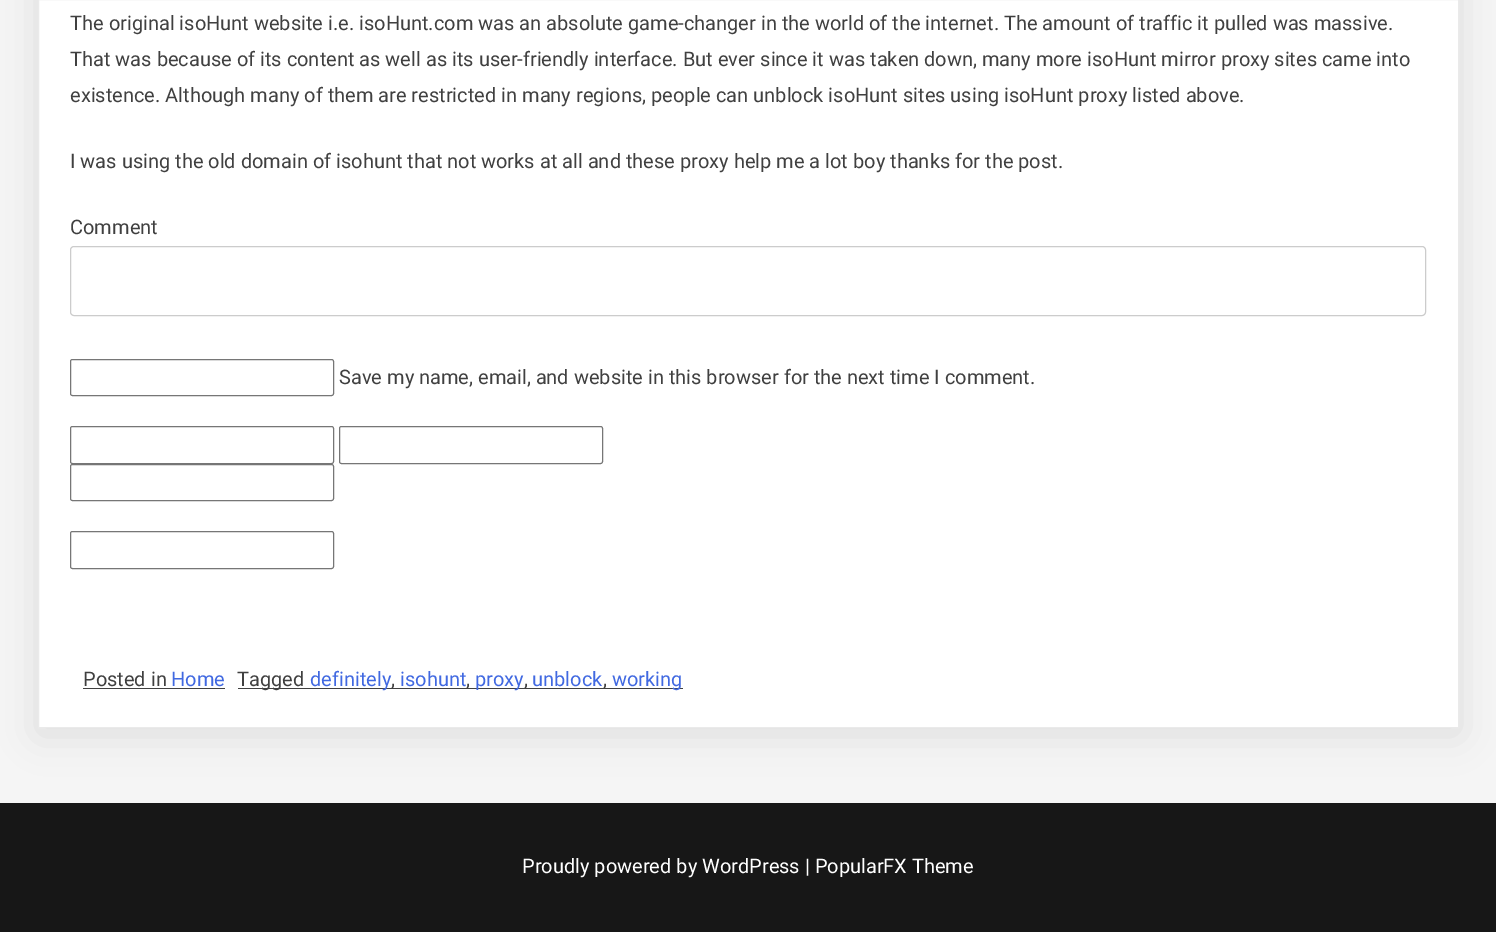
%!PS-Adobe-3.0
%%BoundingBox: 0 0 1496 932
%%LanguageLevel: 3
%%Pages: 1
%%EndComments
%%BeginProlog
/m { moveto } bind def
/l { lineto } bind def
/h { closepath } bind def
/f { fill } bind def
/S { stroke } bind def
/q { gsave } bind def
/Q { grestore } bind def
/fn { [ exch dup neg 0 0 3 -1 roll 0 0 ] selectfont } def
/tx { moveto show } def
/bx { rectfill } def
/al { dup .setfillconstantalpha .setstrokeconstantalpha } def
/rr { 5 dict begin { /r /h /w /y /x } { exch def } forall
  x r add y moveto x w add y 2 copy h add r arct x w add y h add x 1 index r arct
  x y h add x y r arct x y 2 copy exch w add exch r arct closepath end } def
/sh { 12 dict begin { /a /b /q /h /w /y /x } { exch def } forall gsave /was 0 def
  9 -2 -9 { dup b mul 4 div /e exch def 1 sub .425 mul 2.718 exch exp 1 add a .99 .min exch div /now exch def
    1 1 now sub 1 was sub div sub al /was now def
    w h .min e 2 mul add 0 gt { x e sub y e sub w e 2 mul add h e 2 mul add
      q e add b .6 mul add w h .min 2 div e add .min 0 .max rr fill } if } for grestore end } def
%%EndProlog
%%BeginSetup
<< /PageSize [1496 932] /PageUsesTransparency true >> setpagedevice
%%EndSetup
%%Page: 1 1
0 .pushpdf14devicefilter
0 932 translate 1 -1 scale
4 setmiterlimit
0.961 setgray
0 0 1496 932 bx
0 setgray
38 -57 1421 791 0 19 0.1 sh
1 setgray
38.5 -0.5 m 1458.5 -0.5 l 1458.5 727.5 l 38.5 727.5 l h q f Q
0.918 setgray
S
/Roboto-Regular 20 fn
0.251 setgray
(The original isoHunt website i.e. isoHunt.com was an absolute game-changer in the world of the internet. The amount of traffic it pulled was massive.) 70 30 tx
(That was because of its content as well as its user-friendly interface. But ever since it was taken down, many more isoHunt mirror proxy sites came into) 70 66 tx
(existence. Although many of them are restricted in many regions, people can unblock isoHunt sites using isoHunt proxy listed above.) 70 102 tx
(I was using the old domain of isohunt that not works at all and these proxy help me a lot boy thanks for the post.) 70 168 tx
(Comment) 70 234 tx
0.8 setgray
70.5 246.5 1355 69 3.5 rr S
0.463 setgray
70.5 359.5 263 36 2 rr S
0.251 setgray
(Save my name, email, and website in this browser for the next time I comment.) 339 384 tx
0.463 setgray
70.5 426.5 263 37 2 rr S
339.5 426.5 263 37 2 rr S
70.5 464.5 263 36 2 rr S
70.5 531.5 263 37 2 rr S
0.251 setgray
(Posted in) 83 686 tx
83 688 142 1 bx
0.255 0.412 0.882 setrgbcolor
(Home) 171 686 tx
0.251 setgray
238 688 445 1 bx
(Tagged) 237 686 tx
0.255 0.412 0.882 setrgbcolor
(definitely) 310 686 tx
0.251 setgray
(,) 391 686 tx
0.255 0.412 0.882 setrgbcolor
(isohunt) 400 686 tx
0.251 setgray
(,) 466 686 tx
0.255 0.412 0.882 setrgbcolor
(proxy) 475 686 tx
0.251 setgray
(,) 524 686 tx
0.255 0.412 0.882 setrgbcolor
(unblock) 532 686 tx
0.251 setgray
(,) 603 686 tx
0.255 0.412 0.882 setrgbcolor
(working) 612 686 tx
0.09 setgray
0 803 1496 129 bx
1 setgray
(Proudly powered by WordPress | PopularFX Theme) 522 873 tx
.poppdf14devicefilter showpage
%%EOF
